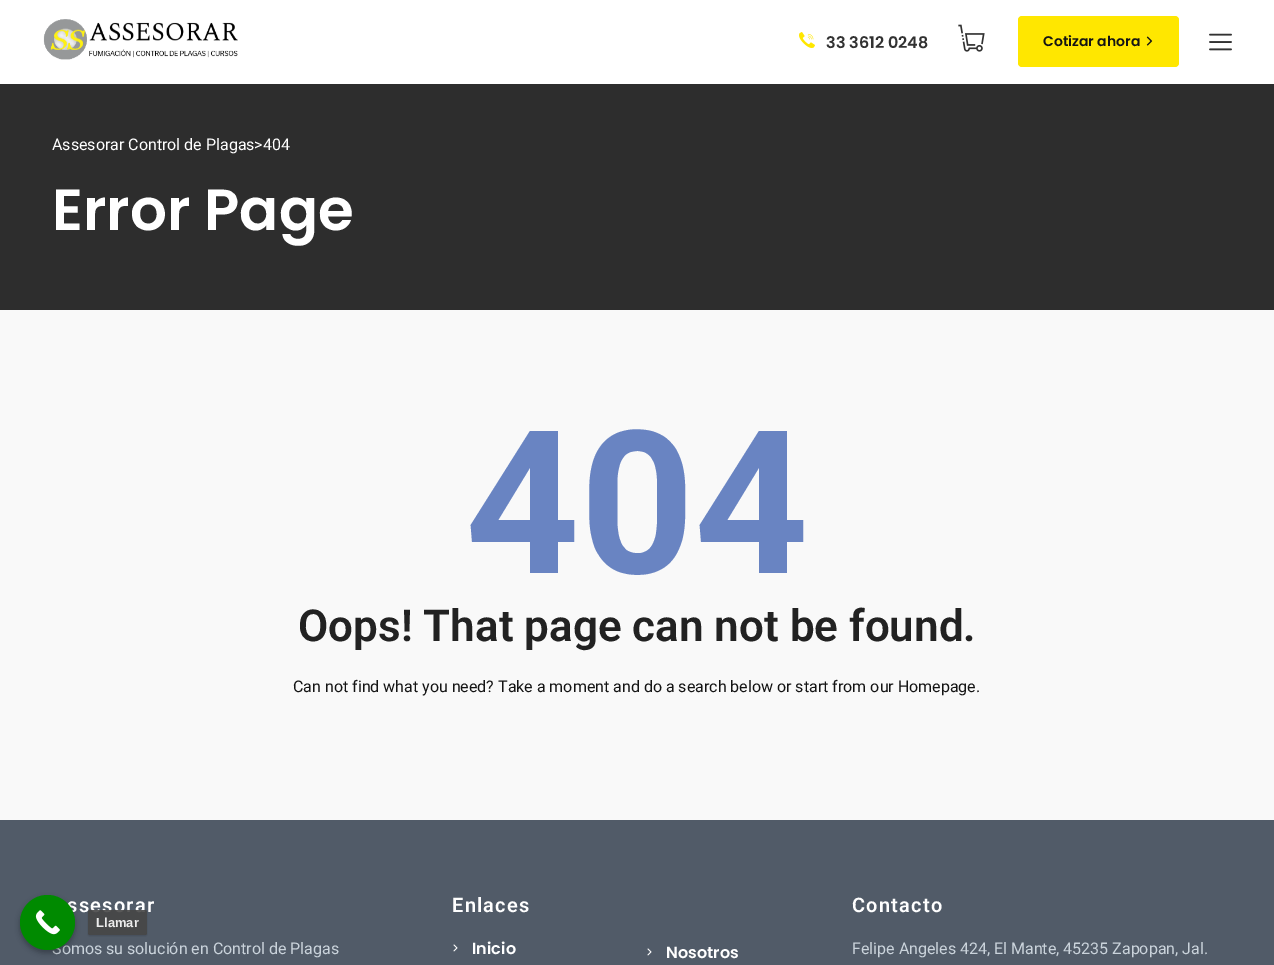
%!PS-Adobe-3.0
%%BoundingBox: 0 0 1274 965
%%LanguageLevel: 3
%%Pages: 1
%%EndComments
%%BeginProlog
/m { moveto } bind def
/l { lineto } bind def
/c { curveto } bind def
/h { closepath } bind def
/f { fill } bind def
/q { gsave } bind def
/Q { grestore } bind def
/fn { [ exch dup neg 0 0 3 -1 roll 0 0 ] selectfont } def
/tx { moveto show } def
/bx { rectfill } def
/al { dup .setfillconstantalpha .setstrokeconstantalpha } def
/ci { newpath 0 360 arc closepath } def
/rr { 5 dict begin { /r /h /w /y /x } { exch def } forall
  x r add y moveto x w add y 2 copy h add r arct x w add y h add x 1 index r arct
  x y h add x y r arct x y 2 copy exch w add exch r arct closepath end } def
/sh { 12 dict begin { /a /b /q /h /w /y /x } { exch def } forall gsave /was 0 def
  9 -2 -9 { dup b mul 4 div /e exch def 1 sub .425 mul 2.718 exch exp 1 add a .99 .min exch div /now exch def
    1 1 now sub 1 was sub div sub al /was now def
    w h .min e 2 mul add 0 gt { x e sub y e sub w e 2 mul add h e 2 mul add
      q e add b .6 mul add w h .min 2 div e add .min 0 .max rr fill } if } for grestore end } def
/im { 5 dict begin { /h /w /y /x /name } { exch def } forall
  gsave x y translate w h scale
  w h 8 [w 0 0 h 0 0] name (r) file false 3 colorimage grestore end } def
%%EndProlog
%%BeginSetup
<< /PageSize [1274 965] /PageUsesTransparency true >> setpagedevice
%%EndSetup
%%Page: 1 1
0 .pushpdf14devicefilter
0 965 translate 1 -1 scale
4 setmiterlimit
0.976 setgray
0 0 1274 965 bx
1 setgray
0 0 1274 84 bx
(image0.raw) 43 19 195 41 im
(image1.raw) 799 32 16 16 im
/Poppins-SemiBold 16 fn
0.196 setgray
(33 3612 0248) 826 48 tx
(image2.raw) 958 24 27 28 im
1 0.906 0 setrgbcolor
1018 16 161 51 4 rr f
/Poppins-SemiBold 14 fn
0.078 setgray
(Cotizar ahora) 1043 46 tx
(image3.raw) 1146 36 7 10 im
(image4.raw) 1209 33 23 18 im
0.176 setgray
0 84 1274 226 bx
/Roboto-Regular 16 fn
1 setgray
(Assesorar Control de Plagas>404) 52 150 tx
/Poppins-SemiBold 58 fn
(Error Page) 52 230 tx
/Roboto-Bold 200 fn
0.412 0.518 0.761 setrgbcolor
(404) 465 573 tx
/Roboto-SemiBold 44 fn
0.133 setgray
(Oops! That page can not be found.) 298 641 tx
/Roboto-Regular 16 fn
0.078 setgray
(Can not find what you need? Take a moment and do a search below or start from our Homepage.) 293 692 tx
0.318 0.357 0.408 setrgbcolor
0 820 1274 145 bx
/Roboto-SemiBold 20 fn
1 setgray
67 912 m 1.25 0 (ssesorar) ashow
/Roboto-Regular 16 fn
0.792 0.827 0.859 setrgbcolor
(Somos su solución en Control de Plagas) 52 954 tx
/Roboto-SemiBold 20 fn
1 setgray
452 912 m 1.25 0 (Enlaces) ashow
(image5.raw) 453 944 5 8 im
/Poppins-SemiBold 16 fn
(Inicio) 472 954 tx
(image5.raw) 647 948 5 8 im
(Nosotros) 666 958 tx
/Roboto-SemiBold 20 fn
852 912 m 1.25 0 (Contacto) ashow
/Roboto-Regular 16 fn
0.792 0.827 0.859 setrgbcolor
(Felipe Angeles 424, El Mante, 45235 Zapopan, Jal.) 852 954 tx
0 setgray
20 898 55 55 27.5 3 0.3 sh
0 0.541 0 setrgbcolor
47.5 922.5 27.5 ci f
(image6.raw) 35 910 25 25 im
q
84 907 m 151 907 l 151 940 l 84 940 l h 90 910 m 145 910 l 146 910 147 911 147 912 c 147 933 l 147 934 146 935 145 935 c 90 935 l 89 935 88 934 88 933 c 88 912 l 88 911 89 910 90 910 c h eoclip newpath
0 setgray
88 911 59 25 2 1 0.15 sh
Q
0.9 al
0.275 setgray
88 910 59 25 2 rr f
/LiberationSans-Bold 13 fn
1 al
0.925 setgray
(Llamar) 96 927 tx
.poppdf14devicefilter showpage
%%EOF
